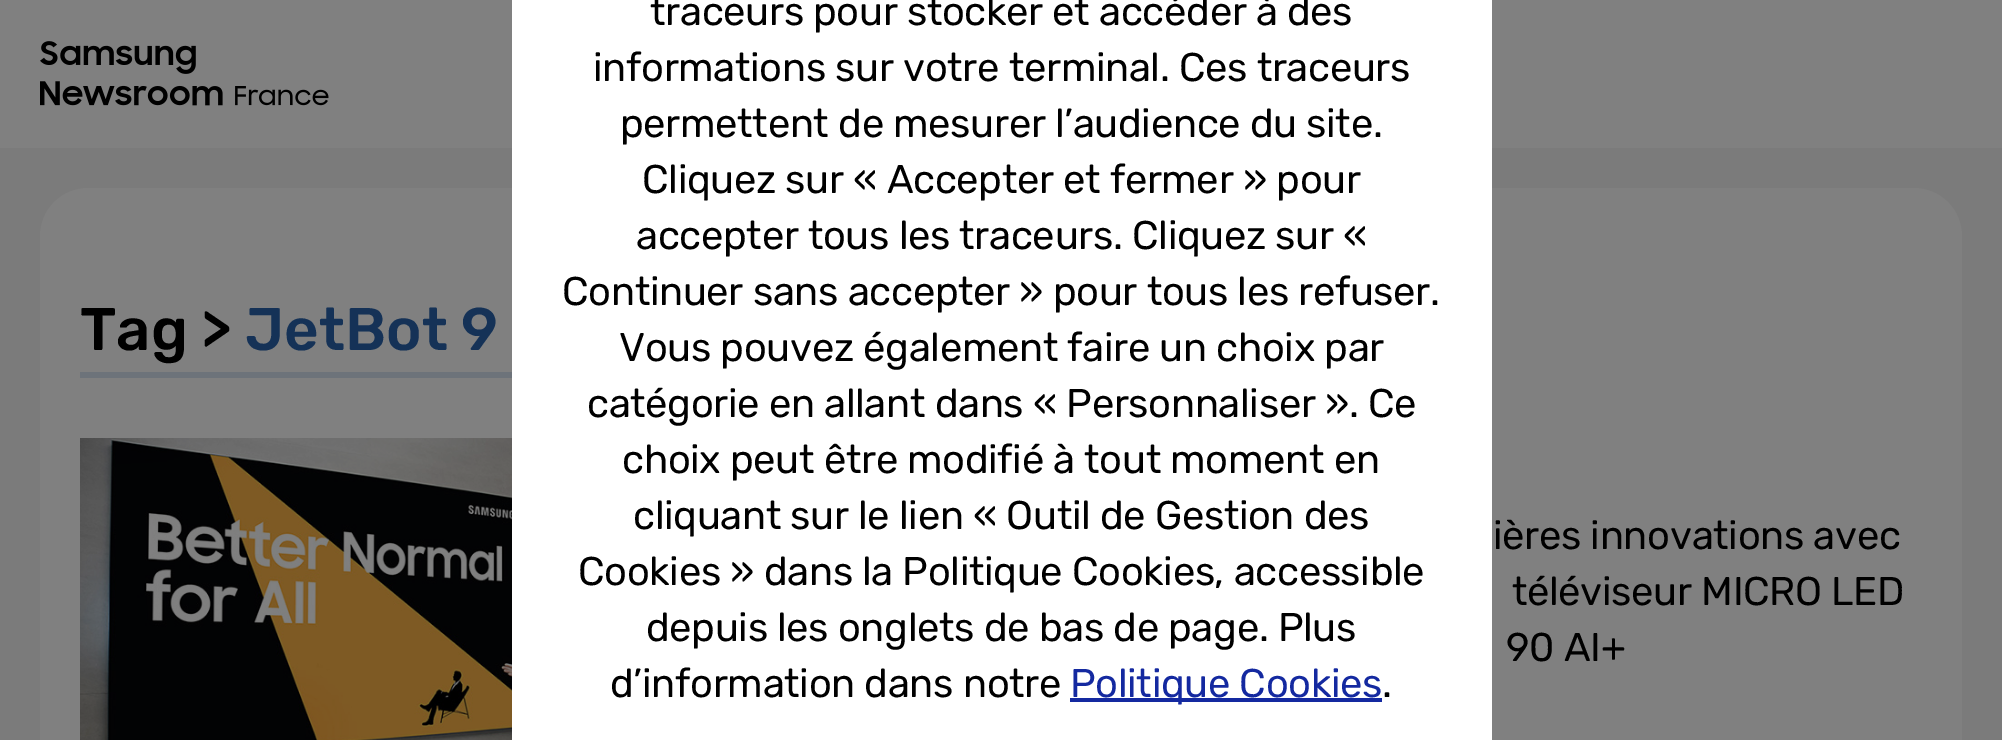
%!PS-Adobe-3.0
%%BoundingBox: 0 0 2002 740
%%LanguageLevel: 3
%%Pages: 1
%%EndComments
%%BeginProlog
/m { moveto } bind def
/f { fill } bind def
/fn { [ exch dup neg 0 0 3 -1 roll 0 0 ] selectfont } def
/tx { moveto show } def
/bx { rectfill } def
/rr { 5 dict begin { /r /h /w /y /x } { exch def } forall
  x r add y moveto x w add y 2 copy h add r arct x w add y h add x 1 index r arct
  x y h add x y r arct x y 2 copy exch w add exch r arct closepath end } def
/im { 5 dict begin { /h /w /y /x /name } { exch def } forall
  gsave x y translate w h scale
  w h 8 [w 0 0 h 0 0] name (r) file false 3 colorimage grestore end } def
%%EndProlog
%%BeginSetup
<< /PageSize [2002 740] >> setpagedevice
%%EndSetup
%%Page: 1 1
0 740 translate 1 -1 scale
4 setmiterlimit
0.502 setgray
0 0 2002 740 bx
0.482 setgray
0 148 2002 592 bx
0.502 setgray
40 188 1922 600 48 rr f
1 setgray
512 0 980 740 bx
/Rubik-Regular 40 fn
0 setgray
650 25 m -0.35 0 (traceurs pour stocker et accéder à des) ashow
593 81 m -0.35 0 (informations sur votre terminal. Ces traceurs) ashow
620 137 m -0.35 0 (permettent de mesurer l’audience du site.) ashow
642 193 m -0.35 0 (Cliquez sur « Accepter et fermer » pour) ashow
636 249 m -0.35 0 (accepter tous les traceurs. Cliquez sur «) ashow
562 305 m -0.35 0 (Continuer sans accepter » pour tous les refuser.) ashow
619 361 m -0.35 0 (Vous pouvez également faire un choix par) ashow
587 417 m -0.35 0 (catégorie en allant dans « Personnaliser ». Ce) ashow
622 473 m -0.35 0 (choix peut être modifié à tout moment en) ashow
633 529 m -0.35 0 (cliquant sur le lien « Outil de Gestion des) ashow
578 585 m -0.35 0 (Cookies » dans la Politique Cookies, accessible) ashow
646 641 m -0.35 0 (depuis les onglets de bas de page. Plus) ashow
610 697 m -0.35 0 (d’information dans notre) ashow
0.078 0.161 0.627 setrgbcolor
1070 698 312 4 bx
1070 697 m -0.35 0 (Politique Cookies) ashow
0 setgray
1382 697 m -0.35 0 (.) ashow
(image0.raw) 40 41 289 65 im
0.427 0.451 0.478 setrgbcolor
80 372 432 6 bx
/Rubik-Medium 60 fn
0 setgray
(Tag >) 80 350 tx
0.082 0.196 0.341 setrgbcolor
(JetBot 9) 245 350 tx
(image1.raw) 80 438 432 302 im
/Rubik-Regular 40 fn
0 setgray
1493 549 m -0.35 0 (ières innovations avec) ashow
1512 605 m -0.35 0 (téléviseur MICRO LED) ashow
1506 661 m -0.35 0 (90 AI+) ashow
showpage
%%EOF
